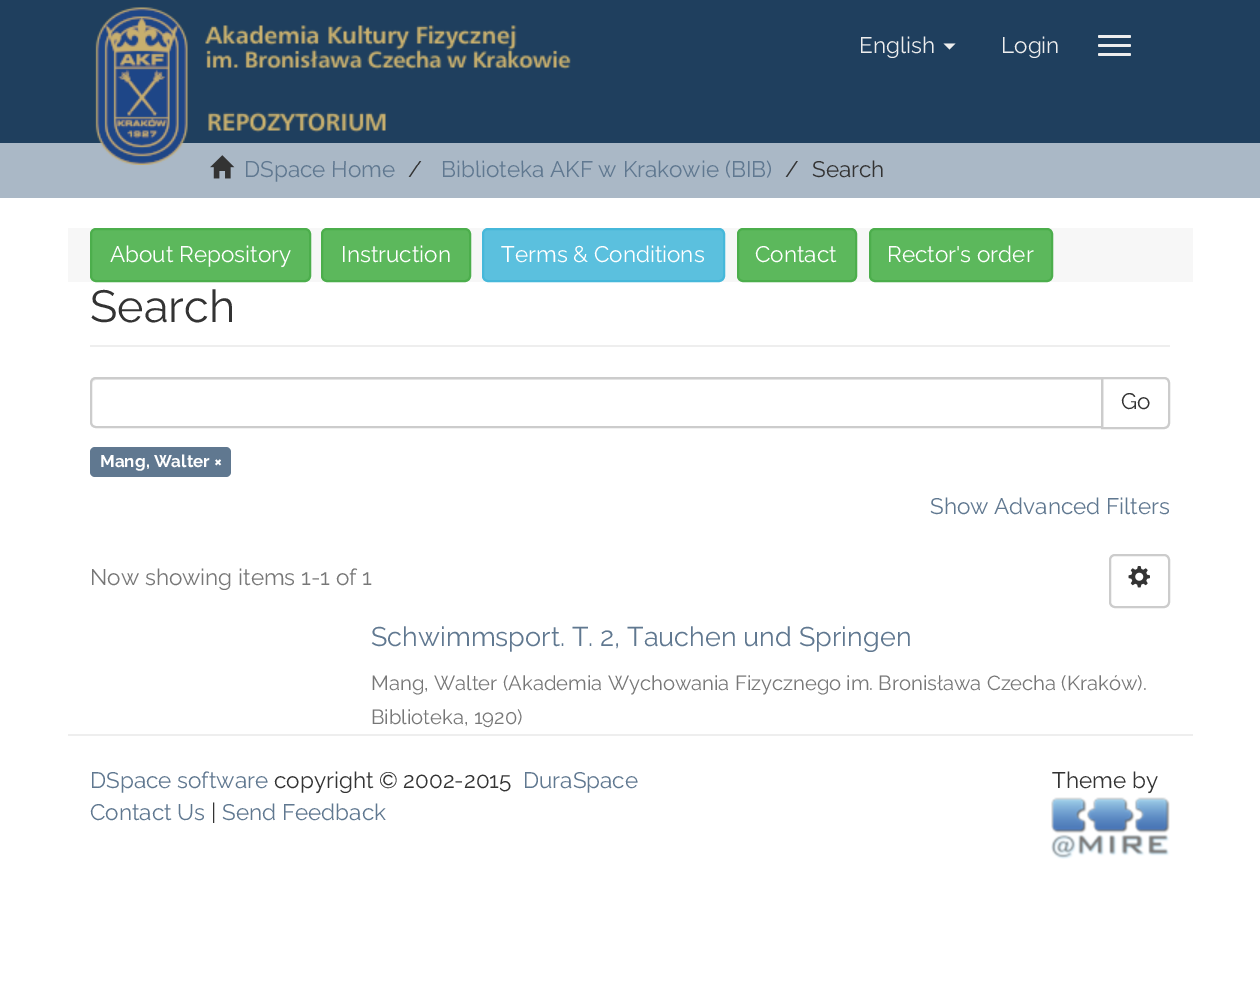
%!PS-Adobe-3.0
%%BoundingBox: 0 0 1260 1004
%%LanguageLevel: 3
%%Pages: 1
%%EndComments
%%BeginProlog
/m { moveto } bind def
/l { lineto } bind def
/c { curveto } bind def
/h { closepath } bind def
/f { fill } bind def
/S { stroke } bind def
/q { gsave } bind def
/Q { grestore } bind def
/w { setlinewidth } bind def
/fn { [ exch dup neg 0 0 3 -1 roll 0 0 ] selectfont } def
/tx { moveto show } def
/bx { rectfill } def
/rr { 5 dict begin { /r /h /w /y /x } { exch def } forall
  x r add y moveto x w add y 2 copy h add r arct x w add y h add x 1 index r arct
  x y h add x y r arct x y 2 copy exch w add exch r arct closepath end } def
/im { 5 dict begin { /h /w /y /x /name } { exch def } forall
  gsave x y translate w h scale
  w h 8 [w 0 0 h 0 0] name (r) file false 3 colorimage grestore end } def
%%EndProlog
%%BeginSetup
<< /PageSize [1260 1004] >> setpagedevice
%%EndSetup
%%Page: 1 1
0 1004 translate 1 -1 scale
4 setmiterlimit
1 setgray
0 0 1260 1004 bx
0.122 0.247 0.369 setrgbcolor
0 0 1260 143 bx
0.667 0.722 0.776 setrgbcolor
0 143 1260 55 bx
(image1.raw) 210 155 25 24 im
/Raleway-Regular 22.5 fn
0.376 0.471 0.565 setrgbcolor
(DSpace Home) 244 177 tx
0.2 setgray
(/) 408 177 tx
0.376 0.471 0.565 setrgbcolor
(Biblioteka AKF w Krakowie \(BIB\)) 441 177 tx
(image0.raw) 95 7 476 158 im
0.933 setgray
(English) 859 53 tx
943.5 43.5 m 955.5 43.5 l 949.5 49.5 l h f
(Login) 1001 53 tx
1098 35 33 3 1.5 rr f
1098 44 33 3 1.5 rr f
1098 53 33 3 1.5 rr f
0.2 setgray
(/) 785 177 tx
(Search) 812 177 tx
0.969 setgray
68 228 1125 54 bx
0.361 0.722 0.361 setrgbcolor
91 229 219 52 5 rr q f Q
0.298 0.682 0.298 setrgbcolor
2 w
S
1 setgray
(About Repository) 110 262 tx
0.361 0.722 0.361 setrgbcolor
322 229 148 52 5 rr q f Q
0.298 0.682 0.298 setrgbcolor
S
1 setgray
(Instruction) 341 262 tx
0.357 0.753 0.871 setrgbcolor
483 229 241 52 5 rr q f Q
0.275 0.722 0.855 setrgbcolor
S
1 setgray
(Terms & Conditions) 501 262 tx
0.361 0.722 0.361 setrgbcolor
738 229 118 52 5 rr q f Q
0.298 0.682 0.298 setrgbcolor
S
1 setgray
(Contact) 755 262 tx
0.361 0.722 0.361 setrgbcolor
870 229 182 52 5 rr q f Q
0.298 0.682 0.298 setrgbcolor
S
1 setgray
(Rector's order) 887 262 tx
0.933 setgray
90 345 1080 2 bx
/Raleway-Regular 45 fn
0.2 setgray
(Search) 90 322 tx
0.8 setgray
1102 378 m 1164 378 l 1167 378 1169 380 1169 383 c 1169 423 l 1169 426 1167 428 1164 428 c 1102 428 l h S
1 setgray
96 377 m 1103 377 l 1103 428 l 96 428 l 92.5 428 90 425.5 90 422 c 90 383 l 90 379.5 92.5 377 96 377 c h f
0.925 setgray
96 380 m 1101 380 l 1101 378 l 97 378 l 94 378 92 381 92 384 c 92 382 94 380 96 380 c h f
0.8 setgray
96 378 m 1102 378 l 1102 427 l 96 427 l 93 427 91 425 91 422 c 91 383 l 91 380 93 378 96 378 c h S
/Raleway-Regular 22.5 fn
0.2 setgray
(Go) 1121 409 tx
0.376 0.471 0.565 setrgbcolor
90 447 141 30 5 rr f
/Raleway-Bold 17 fn
1 setgray
(Mang, Walter ×) 100 467 tx
/Raleway-Regular 22.5 fn
0.376 0.471 0.565 setrgbcolor
(Show Advanced Filters) 930 514 tx
0.467 setgray
(Now showing items 1-1 of 1) 90 585 tx
0.8 setgray
1110 555 59 52 5 rr S
(image2.raw) 1128 566 22 22 im
/Raleway-Regular 27 fn
0.376 0.471 0.565 setrgbcolor
(Schwimmsport. T. 2, Tauchen und Springen) 371 646 tx
/Raleway-Regular 20.25 fn
0.467 setgray
(Mang, Walter) 371 690 tx
(\(Akademia Wychowania Fizycznego im. Bronisława Czecha \(Kraków\).) 503 690 tx
(Biblioteka, 1920\)) 371 724 tx
0.933 setgray
68 734 1125 2 bx
/Raleway-Regular 22.5 fn
0.376 0.471 0.565 setrgbcolor
(DSpace software) 90 788 tx
0.2 setgray
(copyright © 2002-2015) 274 788 tx
0.376 0.471 0.565 setrgbcolor
(DuraSpace) 523 788 tx
(Contact Us) 90 820 tx
0.2 setgray
(|) 211 820 tx
0.376 0.471 0.565 setrgbcolor
(Send Feedback) 222 820 tx
0.2 setgray
(Theme by) 1052 788 tx
(image3.raw) 1051 797 119 62 im
showpage
%%EOF
